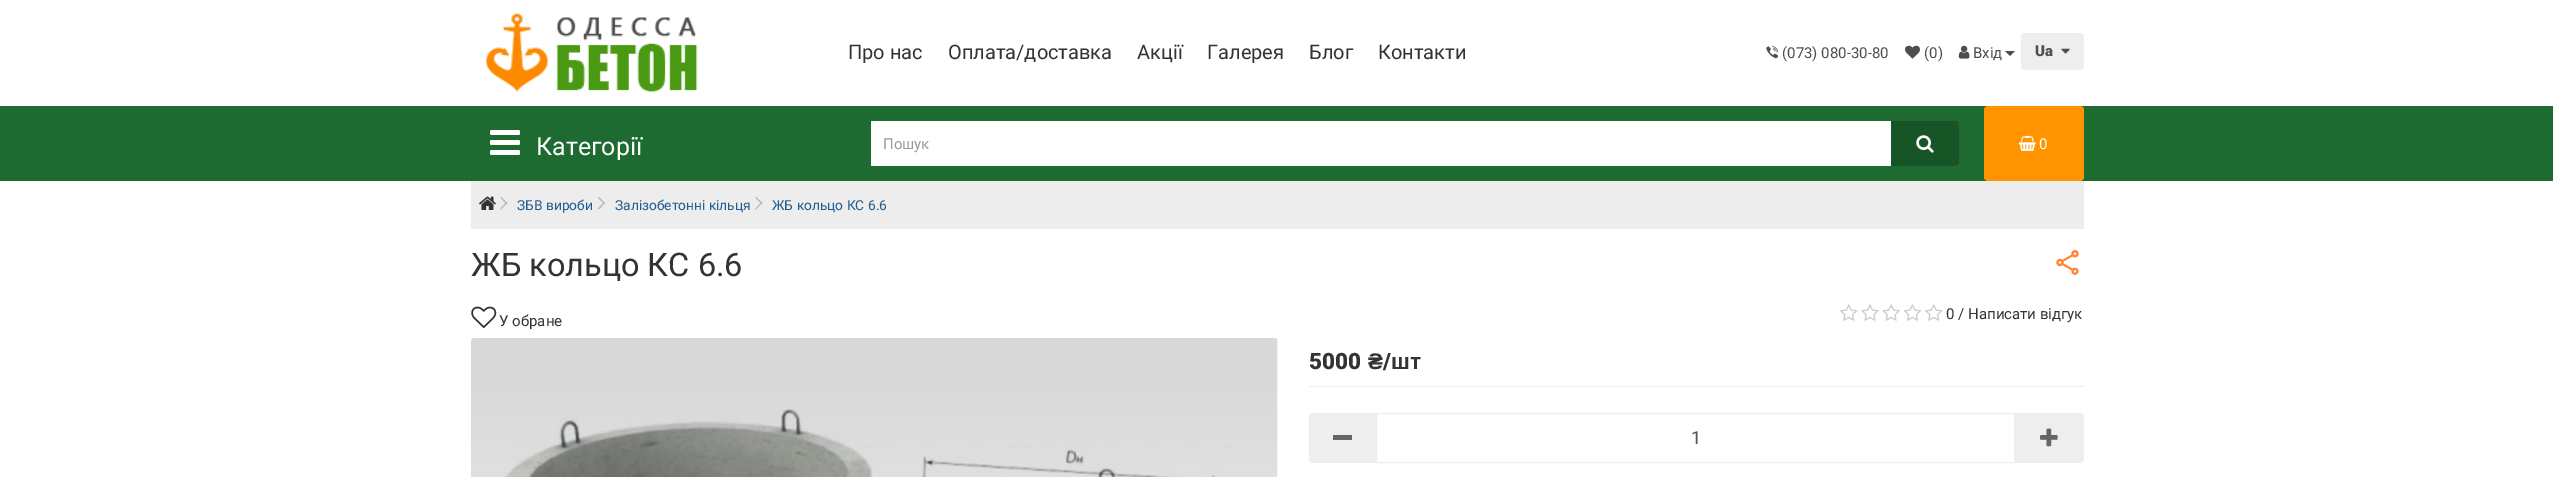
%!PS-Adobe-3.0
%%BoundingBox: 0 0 2553 477
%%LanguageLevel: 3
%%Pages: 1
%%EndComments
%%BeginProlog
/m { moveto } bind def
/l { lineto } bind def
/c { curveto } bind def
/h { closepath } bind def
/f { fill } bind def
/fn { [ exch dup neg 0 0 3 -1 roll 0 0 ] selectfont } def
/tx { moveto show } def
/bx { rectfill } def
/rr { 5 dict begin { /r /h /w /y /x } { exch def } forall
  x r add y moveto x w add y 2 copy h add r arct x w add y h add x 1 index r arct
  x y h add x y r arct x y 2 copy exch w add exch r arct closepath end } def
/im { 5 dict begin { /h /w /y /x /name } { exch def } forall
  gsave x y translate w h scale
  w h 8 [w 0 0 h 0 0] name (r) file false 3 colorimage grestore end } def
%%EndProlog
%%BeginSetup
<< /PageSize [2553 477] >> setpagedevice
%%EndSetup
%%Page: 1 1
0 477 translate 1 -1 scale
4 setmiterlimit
1 setgray
0 0 2553 477 bx
(image0.raw) 486 13 212 79 im
/Roboto-Regular 20 fn
0.2 setgray
(Про нас) 848 59 tx
(Оплата/доставка) 948 59 tx
(Акції) 1137 59 tx
(Галерея) 1207 59 tx
(Блог) 1309 59 tx
(Контакти) 1378 59 tx
(image1.raw) 1766 46 13 13 im
/Roboto-Regular 15 fn
0.306 setgray
(\(073\) 080-30-80) 1782 58 tx
(image2.raw) 1905 45 15 14 im
(\(0\)) 1924 58 tx
(image3.raw) 1958 45 12 14 im
(Вхід) 1973 58 tx
2005 51 m 2015 51 l 2010 56 l h f
0.933 setgray
2021 33 63 37 4 rr f
/Roboto-Black 15 fn
0.306 setgray
(Ua) 2035 56 tx
(image4.raw) 2061 48 9 6 im
0.118 0.42 0.192 setrgbcolor
0 106 2553 75 bx
(image5.raw) 490 130 30 25 im
/Roboto-Regular 25 fn
1 setgray
(Категорії) 536 155 tx
872 121 m 1893 121 l 1893 166 l 872 166 l 871.5 166 871 165.5 871 165 c 871 122 l 871 121.5 871.5 121 872 121 c h f
/Roboto-Regular 15 fn
0.6 setgray
(Пошук) 883 149 tx
0.09 0.329 0.149 setrgbcolor
1891 121 m 1955 121 l 1957 121 1959 123 1959 125 c 1959 162 l 1959 164 1957 166 1955 166 c 1891 166 l h f
(image6.raw) 1916 135 18 18 im
1 0.58 0 setrgbcolor
1984 106 100 75 4 rr f
(image7.raw) 2018 135 18 16 im
1 setgray
(0) 2039 149 tx
0.929 setgray
471 181 1613 48 1 rr f
(image8.raw) 479 196 17 14 im
0.733 setgray
500.5 198 m 501 197 l 507.5 203 l 506.5 204 l h f
500.5 208.5 m 506.5 202 l 507.5 203 l 501 209.5 l h f
/Roboto-Regular 13.75 fn
0.133 0.365 0.565 setrgbcolor
(ЗБВ вироби) 517 210 tx
0.733 setgray
598 198 m 599 197 l 605 203 l 604 204 l h f
598 208.5 m 604 202 l 605 203 l 599 209.5 l h f
0.133 0.365 0.565 setrgbcolor
(Залізобетонні кільця) 615 210 tx
0.733 setgray
755.5 198 m 756 197 l 762.5 203 l 761.5 204 l h f
755.5 208.5 m 761.5 202 l 762.5 203 l 756 209.5 l h f
0.133 0.365 0.565 setrgbcolor
(ЖБ кольцо КС 6.6) 772 210 tx
/Roboto-Regular 32.5 fn
0.2 setgray
(ЖБ кольцо КС 6.6) 471 276 tx
(image9.raw) 2056 250 23 25 im
(image10.raw) 471 306 26 22 im
/Roboto-Regular 15 fn
(У обране) 499 326 tx
(image11.raw) 1840 304 18 17 im
(image12.raw) 1861 304 18 17 im
(image13.raw) 1882 304 18 17 im
(image14.raw) 1903 304 18 17 im
(image11.raw) 1925 304 18 17 im
(0 / Написати відгук) 1946 319 tx
(image15.raw) 471 338 807 139 im
0.933 setgray
1309 386 775 1 bx
/Roboto-Black 22.5 fn
0.2 setgray
(5000) 1309 369 tx
/LiberationSans-Bold 22.5 fn
(₴) 1368 369 tx
/Roboto-Black 22.5 fn
(/) 1383 369 tx
/LiberationSans-Bold 22.5 fn
(шт) 1391 369 tx
0.933 setgray
1313 413 m 1376 413 l 1376 463 l 1313 463 l 1311 463 1309 461 1309 459 c 1309 417 l 1309 415 1311 413 1313 413 c h f
0.4 setgray
1333 435 19 5 bx
0.933 setgray
1376.5 413.5 638 49 rectstroke
/Roboto-Regular 18 fn
0.333 setgray
(1) 1691 444 tx
0.933 setgray
2015 413 m 2080 413 l 2082 413 2084 415 2084 417 c 2084 459 l 2084 461 2082 463 2080 463 c 2015 463 l h f
(image16.raw) 2040 428 18 19 im
showpage
%%EOF
